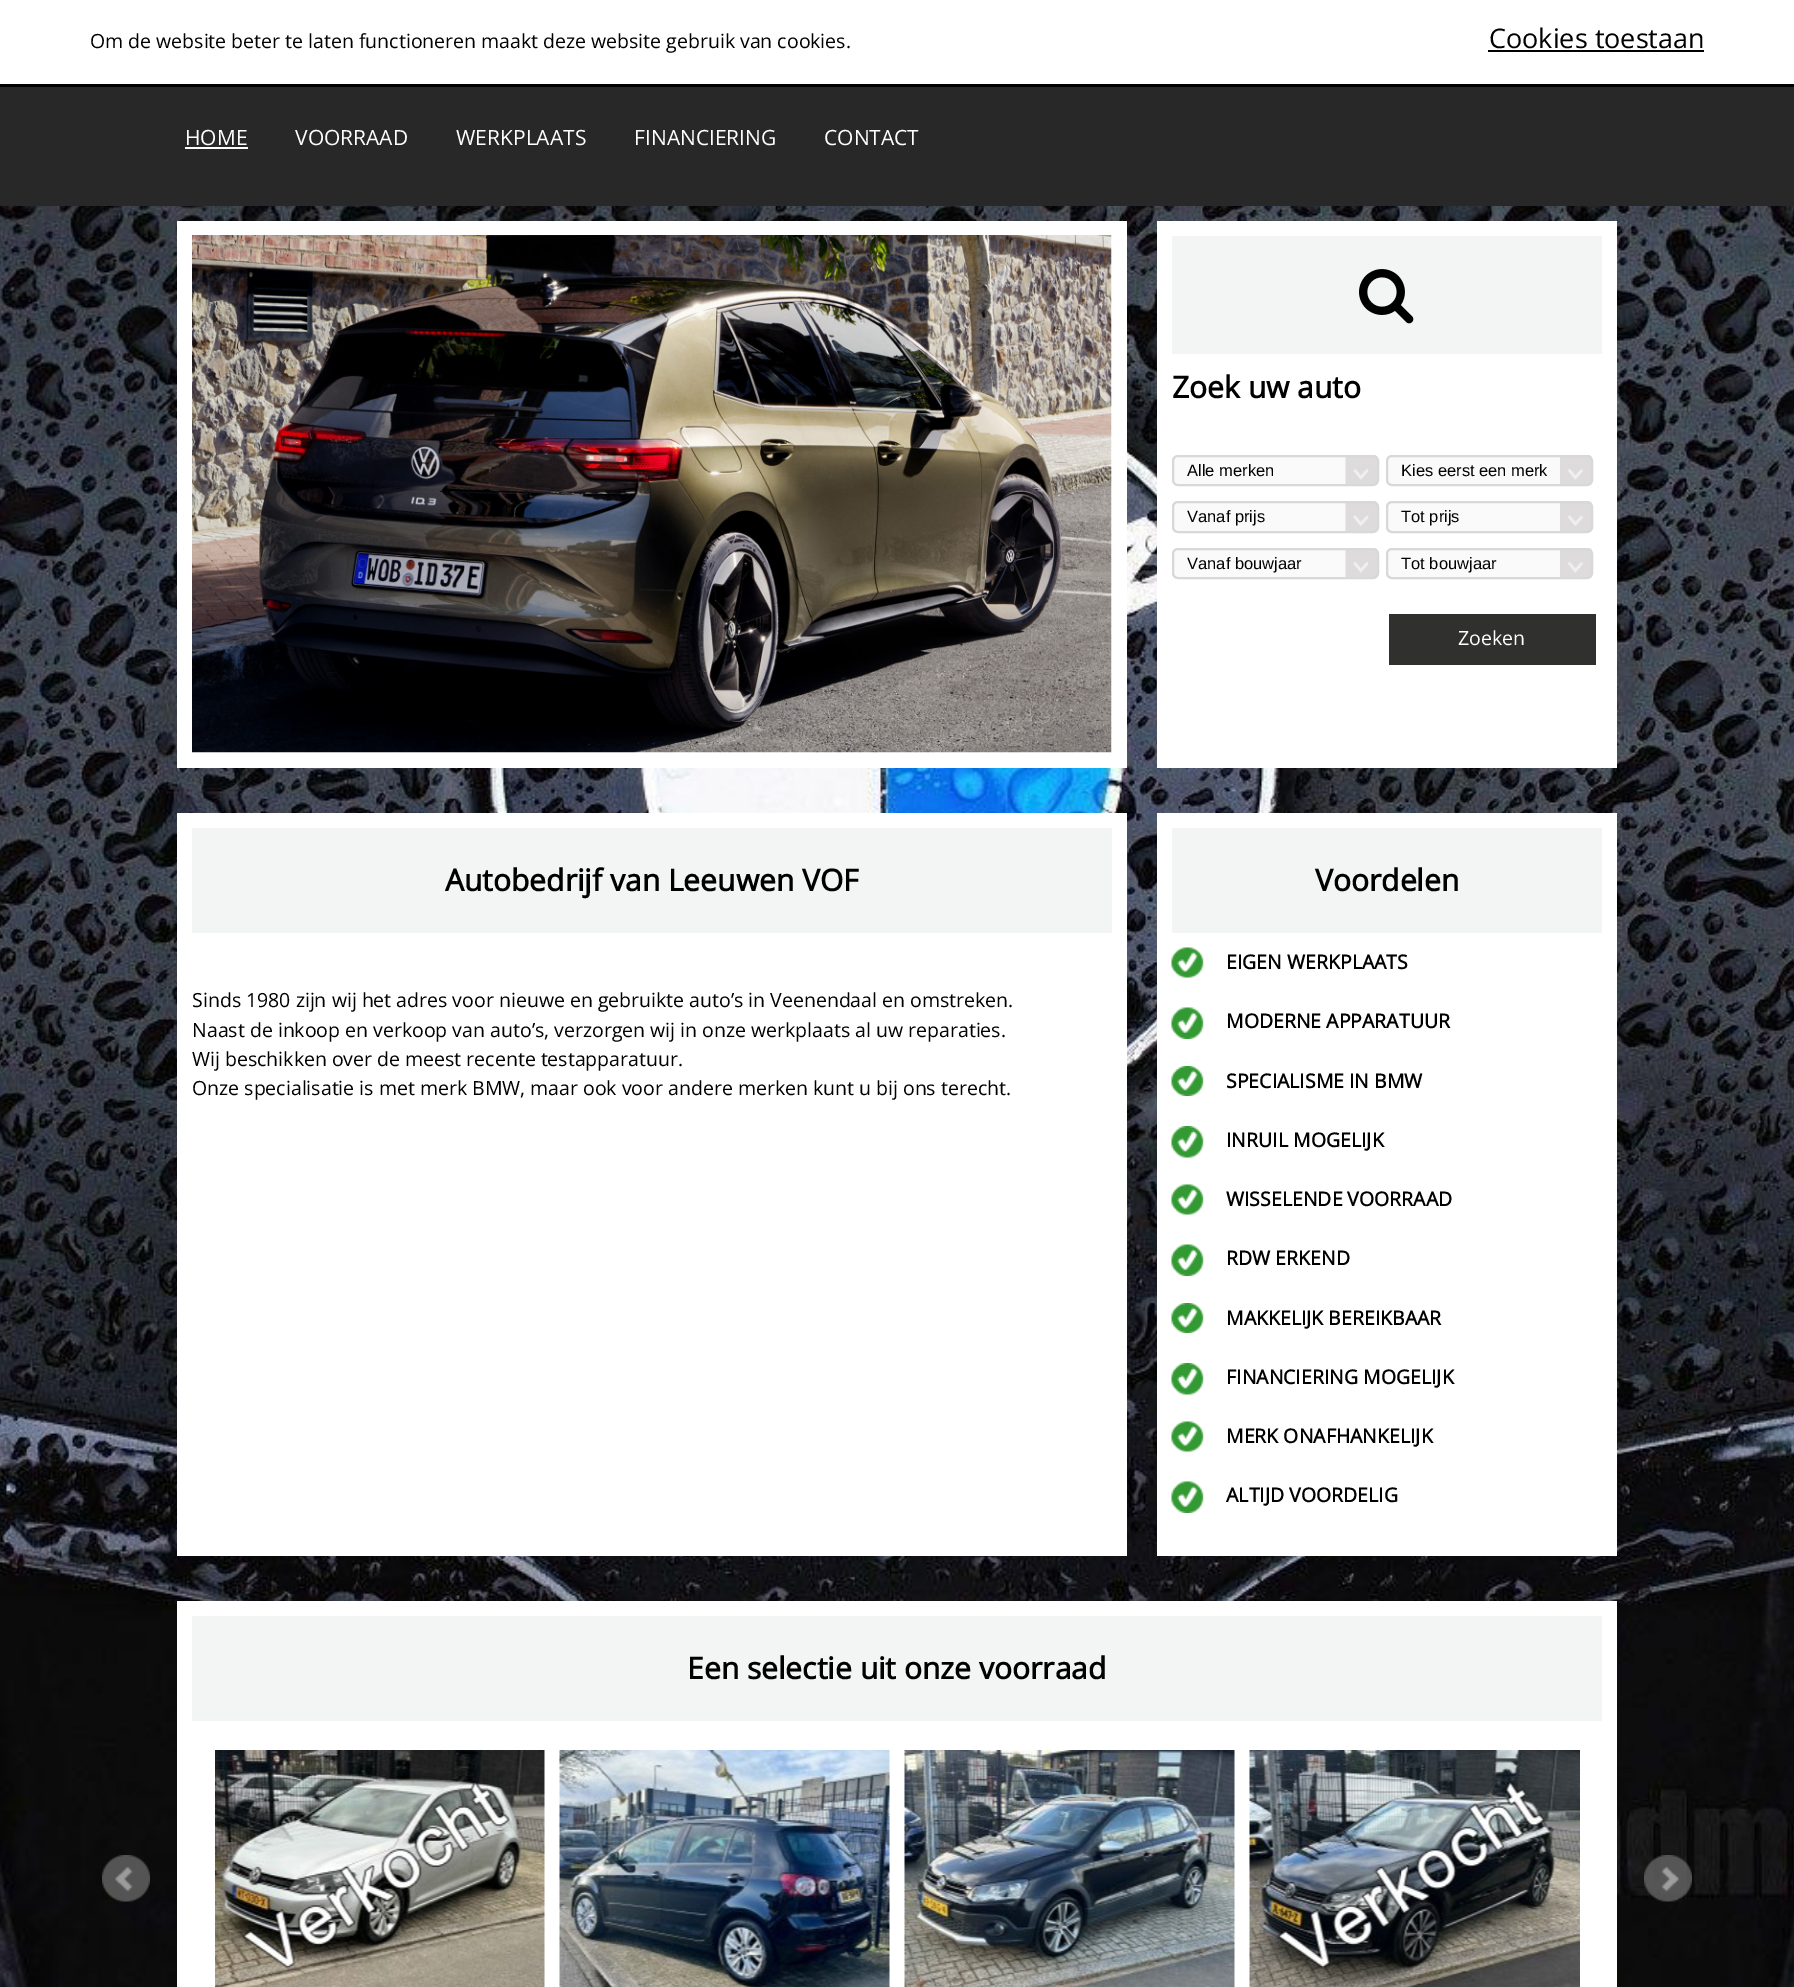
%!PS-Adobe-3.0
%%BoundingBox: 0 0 1794 1987
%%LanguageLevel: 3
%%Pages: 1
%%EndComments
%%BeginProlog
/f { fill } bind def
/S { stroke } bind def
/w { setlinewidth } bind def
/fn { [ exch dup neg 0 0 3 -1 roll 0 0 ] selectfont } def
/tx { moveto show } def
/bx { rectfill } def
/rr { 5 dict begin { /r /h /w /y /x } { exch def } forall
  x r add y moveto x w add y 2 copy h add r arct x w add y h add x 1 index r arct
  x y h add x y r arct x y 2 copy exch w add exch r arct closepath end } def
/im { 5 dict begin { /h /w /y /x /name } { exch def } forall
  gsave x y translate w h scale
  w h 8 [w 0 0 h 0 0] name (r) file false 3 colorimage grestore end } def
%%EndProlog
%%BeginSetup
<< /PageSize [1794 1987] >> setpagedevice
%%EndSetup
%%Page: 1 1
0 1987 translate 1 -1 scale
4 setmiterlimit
1 setgray
0 0 1794 1987 bx
(image0.raw) 0 206 1794 1781 im
0 setgray
0 84 1794 3 bx
/OpenSans-Regular 19.5 fn
(Om de website beter te laten functioneren maakt deze website gebruik van cookies.) 90 48 tx
/OpenSans-Regular 27 fn
(Cookies toestaan) 1489 48 tx
1488 50 216 2 bx
0.161 0.157 0.161 setrgbcolor
0 87 1794 119 bx
/OpenSans-Regular 21 fn
1 setgray
(HOME) 185 145 tx
185 147 63 2 bx
(VOORRAAD) 295 145 tx
(WERKPLAATS) 456 145 tx
(FINANCIERING) 634 145 tx
(CONTACT) 824 145 tx
177 221 950 547 bx
(image1.raw) 192 235 920 518 im
1157 221 460 547 bx
0.953 0.957 0.957 setrgbcolor
1172 236 430 118 bx
(image2.raw) 1359 269 55 55 im
/OpenSans-Bold 30 fn
0 setgray
(Zoek uw auto) 1172 398 tx
0.98 setgray
1172 455 207 31 6 rr f
(image3.raw) 1345 455 32 31 im
0.847 setgray
2 w
1173 456 205 29 5 rr S
/LiberationSans-Regular 16.5 fn
0 setgray
(Alle merken) 1187 476 tx
0.98 setgray
1386 455 207 31 6 rr f
(image4.raw) 1560 455 32 31 im
0.847 setgray
1387 456 205 29 5 rr S
0 setgray
(Kies eerst een merk) 1401 476 tx
0.98 setgray
1172 501 207 32 6 rr f
(image5.raw) 1345 502 32 29 im
0.847 setgray
1173 502 205 30 5 rr S
0 setgray
(Vanaf prijs) 1187 522 tx
0.98 setgray
1386 501 207 32 6 rr f
(image6.raw) 1560 502 32 29 im
0.847 setgray
1387 502 205 30 5 rr S
0 setgray
(Tot prijs) 1401 522 tx
0.98 setgray
1172 548 207 31 6 rr f
(image3.raw) 1345 548 32 31 im
0.847 setgray
1173 549 205 29 5 rr S
0 setgray
(Vanaf bouwjaar) 1187 569 tx
0.98 setgray
1386 548 207 31 6 rr f
(image4.raw) 1560 548 32 31 im
0.847 setgray
1387 549 205 29 5 rr S
0 setgray
(Tot bouwjaar) 1401 569 tx
0.188 0.188 0.184 setrgbcolor
1389 614 207 51 bx
/OpenSans-Regular 19.5 fn
1 setgray
(Zoeken) 1458 645 tx
177 813 950 743 bx
0.953 0.957 0.957 setrgbcolor
192 828 920 105 bx
/OpenSans-Bold 30 fn
0 setgray
(Autobedrijf van Leeuwen VOF) 445 891 tx
/OpenSans-Regular 19.5 fn
(Sinds 1980 zijn wij het adres voor nieuwe en gebruikte auto’s in Veenendaal en omstreken.) 192 1007 tx
(Naast de inkoop en verkoop van auto’s, verzorgen wij in onze werkplaats al uw reparaties.) 192 1037 tx
(Wij beschikken over de meest recente testapparatuur.) 192 1066 tx
(Onze specialisatie is met merk BMW, maar ook voor andere merken kunt u bij ons terecht.) 192 1095 tx
1 setgray
1157 813 460 743 bx
0.953 0.957 0.957 setrgbcolor
1172 828 430 105 bx
/OpenSans-Bold 30 fn
0 setgray
(Voordelen) 1315 891 tx
(image7.raw) 1171 947 33 31 im
/OpenSans-Bold 19.5 fn
(EIGEN WERKPLAATS) 1226 969 tx
(image8.raw) 1171 1007 33 32 im
(MODERNE APPARATUUR) 1226 1028 tx
(image9.raw) 1171 1066 33 30 im
(SPECIALISME IN BMW) 1226 1088 tx
(image10.raw) 1171 1126 33 32 im
(INRUIL MOGELIJK) 1226 1147 tx
(image7.raw) 1171 1184 33 31 im
(WISSELENDE VOORRAAD) 1226 1206 tx
(image8.raw) 1171 1244 33 32 im
(RDW ERKEND) 1226 1265 tx
(image9.raw) 1171 1303 33 30 im
(MAKKELIJK BEREIKBAAR) 1226 1325 tx
(image10.raw) 1171 1363 33 32 im
(FINANCIERING MOGELIJK) 1226 1384 tx
(image7.raw) 1171 1421 33 31 im
(MERK ONAFHANKELIJK) 1226 1443 tx
(image8.raw) 1171 1481 33 32 im
(ALTIJD VOORDELIG) 1226 1502 tx
1 setgray
177 1601 1440 386 bx
0.953 0.957 0.957 setrgbcolor
192 1616 1410 105 bx
/OpenSans-Bold 30 fn
0 setgray
(Een selectie uit onze voorraad) 687 1679 tx
(image11.raw) 215 1750 330 237 im
(image12.raw) 559 1750 331 237 im
(image13.raw) 904 1750 331 237 im
(image14.raw) 1249 1750 331 237 im
(image15.raw) 102 1855 48 47 im
(image16.raw) 1644 1855 48 47 im
showpage
%%EOF
